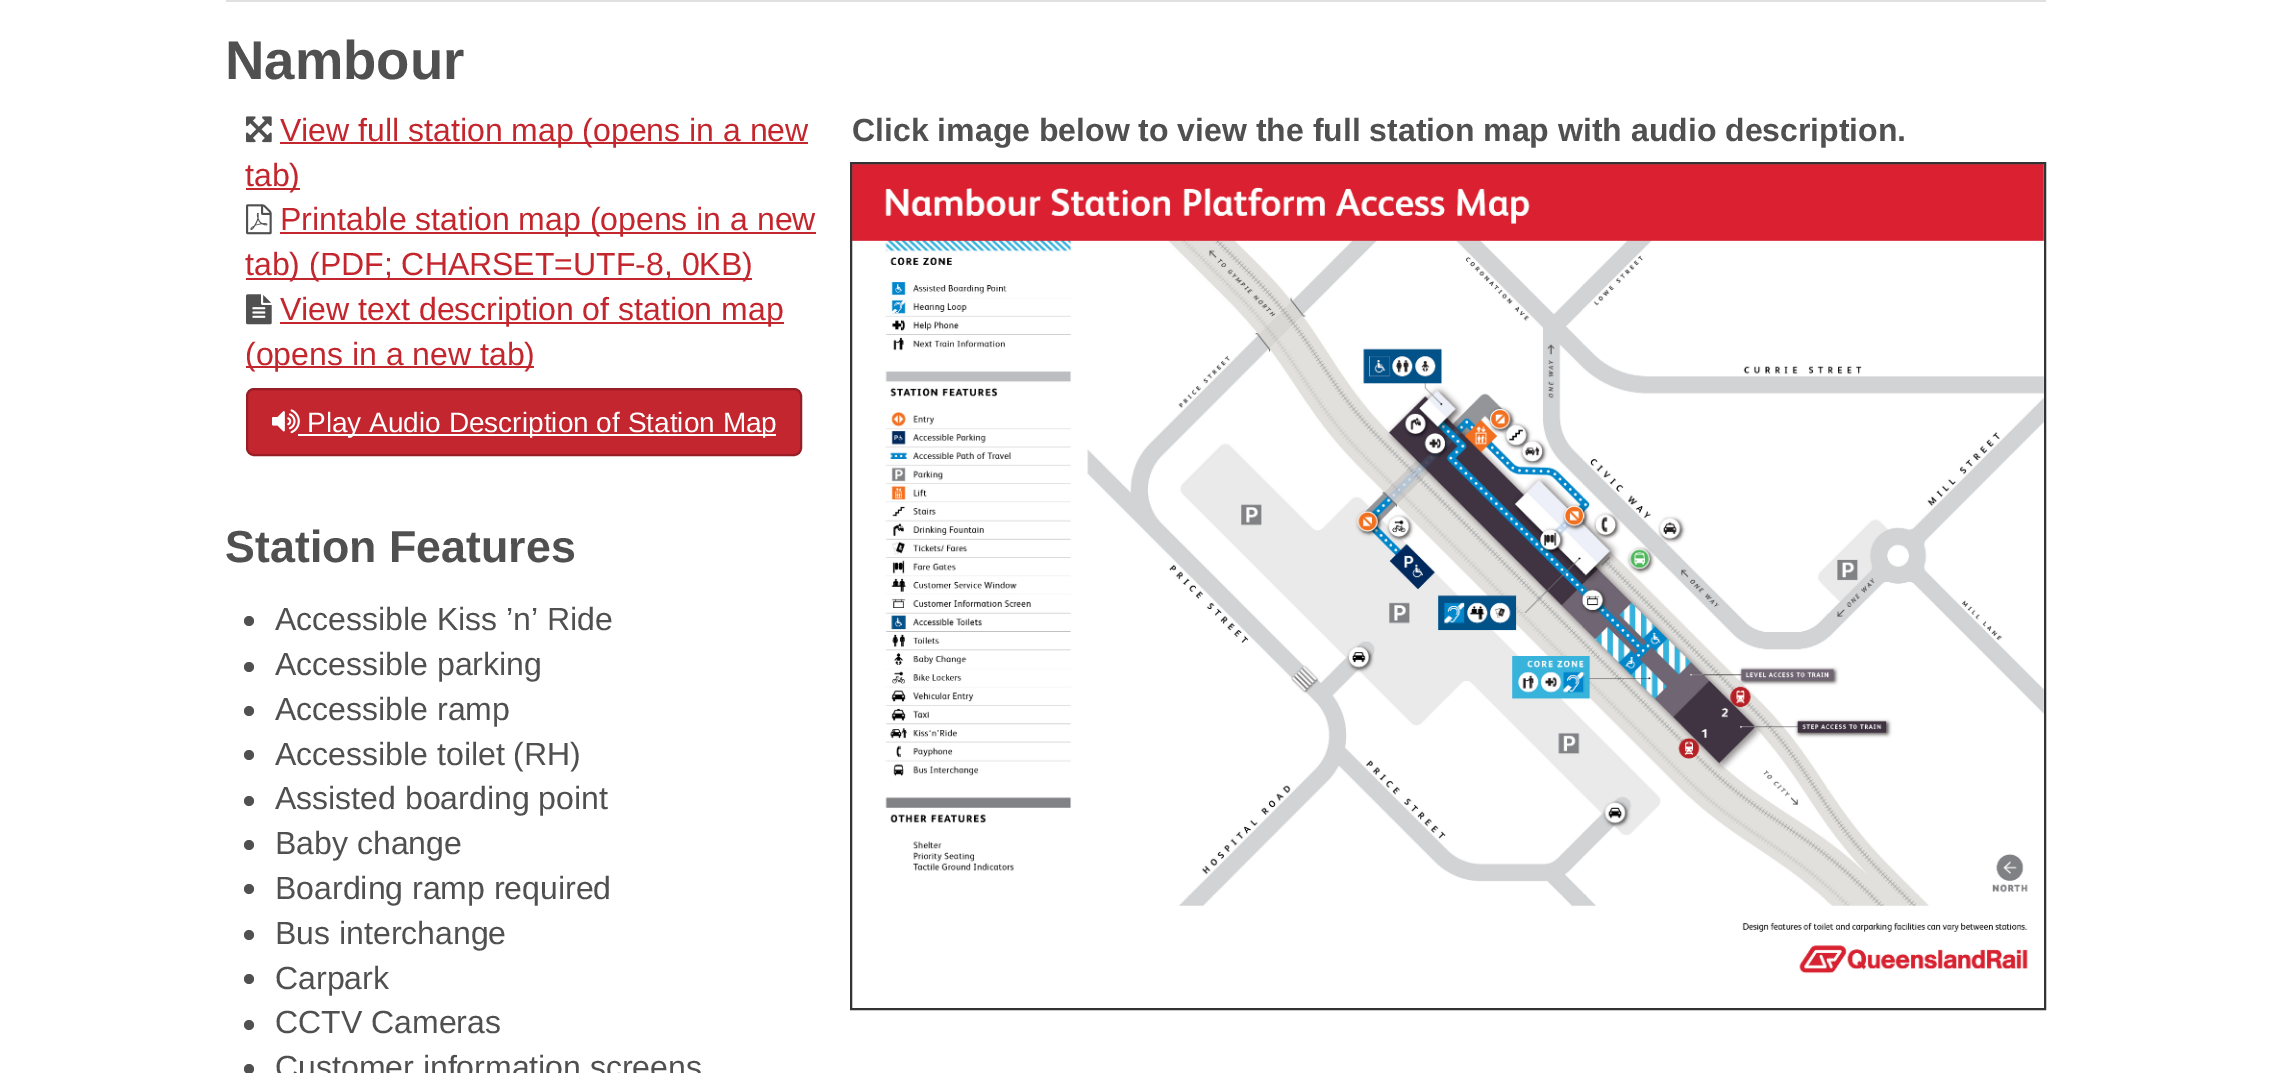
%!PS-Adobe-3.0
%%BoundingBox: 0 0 2269 1073
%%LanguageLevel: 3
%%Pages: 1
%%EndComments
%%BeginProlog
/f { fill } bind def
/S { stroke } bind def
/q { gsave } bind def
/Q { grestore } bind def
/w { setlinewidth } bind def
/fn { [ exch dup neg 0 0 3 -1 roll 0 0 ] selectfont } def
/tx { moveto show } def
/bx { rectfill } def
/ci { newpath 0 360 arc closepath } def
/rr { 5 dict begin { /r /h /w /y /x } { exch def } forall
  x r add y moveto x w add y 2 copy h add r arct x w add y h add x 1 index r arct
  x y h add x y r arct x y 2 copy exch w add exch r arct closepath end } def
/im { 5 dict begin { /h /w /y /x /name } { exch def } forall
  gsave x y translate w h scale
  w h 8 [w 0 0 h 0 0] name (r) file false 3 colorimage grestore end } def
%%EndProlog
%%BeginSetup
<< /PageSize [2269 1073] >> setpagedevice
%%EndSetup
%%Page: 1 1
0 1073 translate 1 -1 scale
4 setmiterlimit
1 setgray
0 0 2269 1073 bx
0.878 setgray
226 0 1820 2 bx
/LiberationSans-Bold 54.5 fn
0.314 setgray
(Nambour) 225 79 tx
(image0.raw) 246 116 26 27 im
0.769 0.149 0.18 setrgbcolor
280 142 528 2 bx
/LiberationSans-Regular 32 fn
(View full station map \(opens in a new) 280 141 tx
246 188 54 2 bx
(tab\)) 245 186 tx
(image1.raw) 246 204 26 31 im
280 232 536 2 bx
(Printable station map \(opens in a new) 280 230 tx
246 278 506 2 bx
(tab\) \(PDF; CHARSET=UTF-8, 0KB\)) 245 275 tx
(image2.raw) 246 294 26 31 im
280 322 504 2 bx
(View text description of station map) 280 320 tx
246 366 288 2 bx
(\(opens in a new tab\)) 245 365 tx
0.765 0.149 0.184 setrgbcolor
247 389 554 66 7 rr q f Q
0.596 0.118 0.145 setrgbcolor
2 w
S
(image3.raw) 272 409 28 25 im
1 setgray
298 434 478 2 bx
/LiberationSans-Regular 28 fn
(Play Audio Description of Station Map) 307 432 tx
/LiberationSans-Bold 44.75 fn
0.314 setgray
(Station Features) 225 562 tx
249 621 5 ci f
/LiberationSans-Regular 32 fn
(Accessible Kiss ’n’ Ride) 275 630 tx
249 667 5 ci f
(Accessible parking) 275 675 tx
249 711 5 ci f
(Accessible ramp) 275 720 tx
249 755 5 ci f
(Accessible toilet \(RH\)) 275 765 tx
249 801 5 ci f
(Assisted boarding point) 275 809 tx
249 845 5 ci f
(Baby change) 275 854 tx
249 889 5 ci f
(Boarding ramp required) 275 899 tx
249 935 5 ci f
(Bus interchange) 275 944 tx
249 979 5 ci f
(Carpark) 275 989 tx
249 1025 5 ci f
(CCTV Cameras) 275 1033 tx
249 1069 5 ci f
(Customer information screens) 275 1078 tx
/LiberationSans-Bold 32 fn
(Click image below to view the full station map with audio description.) 852 141 tx
(image4.raw) 852 164 1192 810 im
0.2 setgray
851 163 1194 846 rectstroke
showpage
%%EOF
